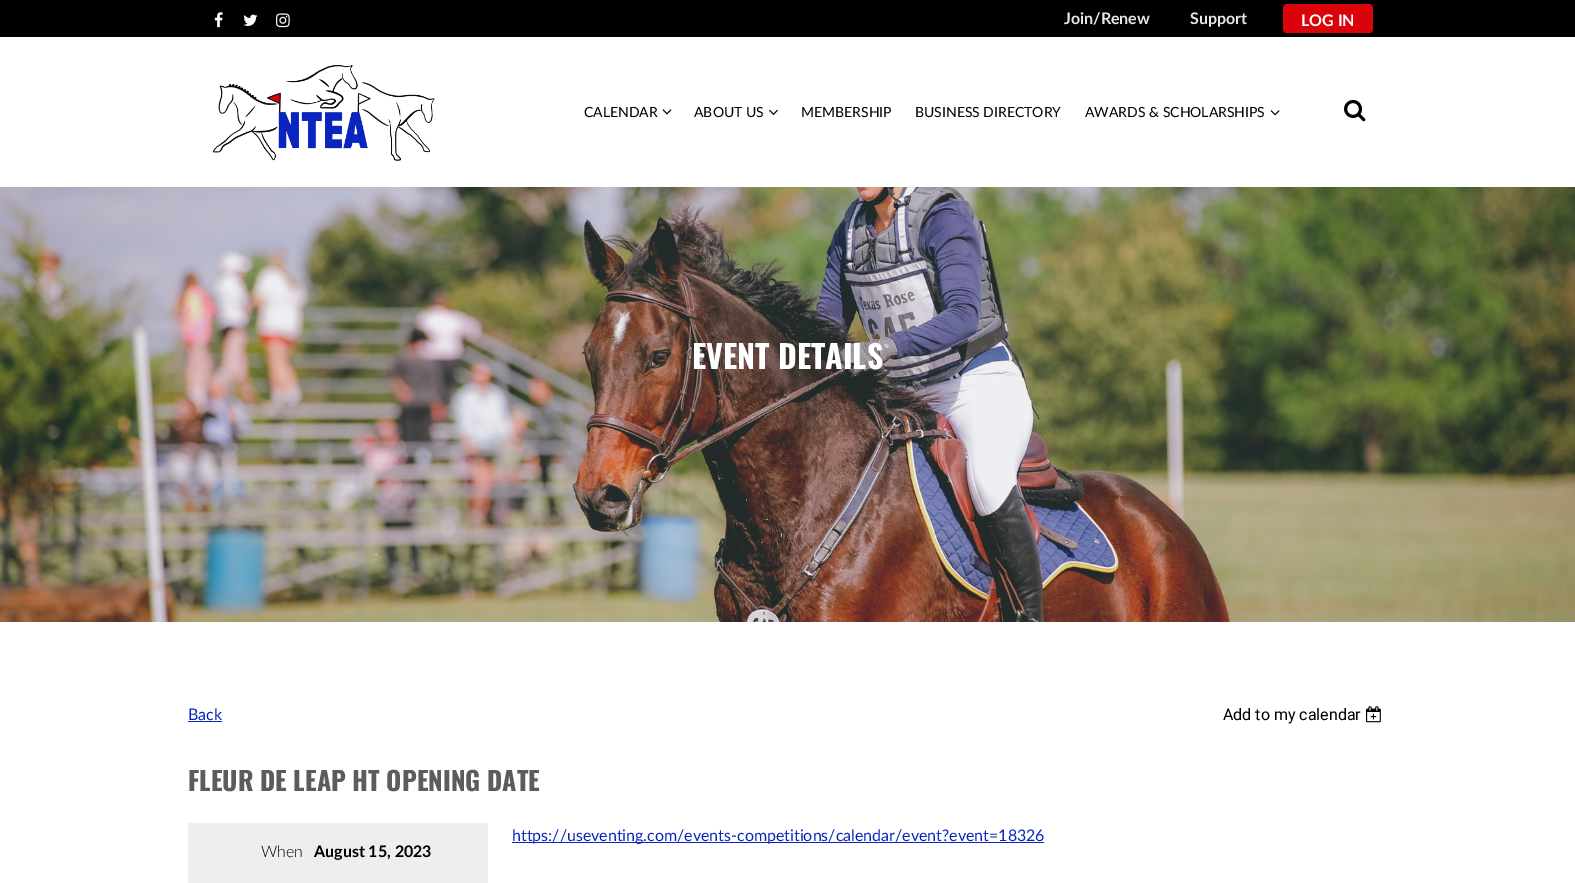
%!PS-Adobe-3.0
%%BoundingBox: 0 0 1575 883
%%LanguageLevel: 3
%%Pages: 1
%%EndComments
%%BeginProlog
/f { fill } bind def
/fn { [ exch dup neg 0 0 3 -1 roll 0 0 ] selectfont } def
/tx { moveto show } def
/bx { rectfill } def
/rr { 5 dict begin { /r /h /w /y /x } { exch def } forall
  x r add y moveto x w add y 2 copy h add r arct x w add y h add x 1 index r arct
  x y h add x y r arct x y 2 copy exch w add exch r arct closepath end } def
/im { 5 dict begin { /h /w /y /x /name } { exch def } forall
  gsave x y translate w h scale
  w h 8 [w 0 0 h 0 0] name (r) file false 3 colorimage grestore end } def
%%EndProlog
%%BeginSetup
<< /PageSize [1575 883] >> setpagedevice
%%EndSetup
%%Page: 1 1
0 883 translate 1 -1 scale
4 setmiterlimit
1 setgray
0 0 1575 883 bx
0 setgray
0 0 1575 37 bx
(image0.raw) 214 12 9 16 im
(image1.raw) 243 14 15 12 im
(image2.raw) 276 13 14 15 im
/Lato-Bold 16 fn
0.902 setgray
(Join/Renew) 1064 24 tx
(Support) 1190 24 tx
0.855 0.012 0.035 setrgbcolor
1283 4 90 29 4 rr f
1 setgray
(LOG IN) 1301 26 tx
(image3.raw) 212 65 223 96 im
/Lato-Regular 14 fn
0 setgray
(CALENDAR) 584 117 tx
(image4.raw) 662 109 10 6 im
(ABOUT US) 694 117 tx
(image5.raw) 769 109 9 6 im
(MEMBERSHIP) 801 117 tx
(BUSINESS DIRECTORY) 915 117 tx
(AWARDS & SCHOLARSHIPS) 1085 117 tx
(image6.raw) 1270 110 10 6 im
(image7.raw) 1344 99 22 23 im
(image8.raw) 0 187 1575 435 im
/Oswald-Bold 32 fn
1 setgray
(EVENT DETAILS) 692 369 tx
/Lato-Regular 16 fn
0.035 0.145 0.741 setrgbcolor
(Back) 188 720 tx
188 721 34 1 bx
/Roboto-Regular 16 fn
0 setgray
(Add to my calendar) 1223 720 tx
(image9.raw) 1366 706 15 17 im
/Oswald-Bold 26 fn
0.361 setgray
(FLEUR DE LEAP HT OPENING DATE) 188 791 tx
0.035 0.145 0.741 setrgbcolor
512 842 532 1 bx
/Lato-Regular 16 fn
(https://useventing.com/events-competitions/calendar/event?event=18326) 512 841 tx
0.933 0.933 0.941 setrgbcolor
188 823 300 60 bx
/Lato-Light 16 fn
0 setgray
(When) 261 857 tx
/Lato-Bold 16 fn
(August 15, 2023) 314 857 tx
showpage
%%EOF
